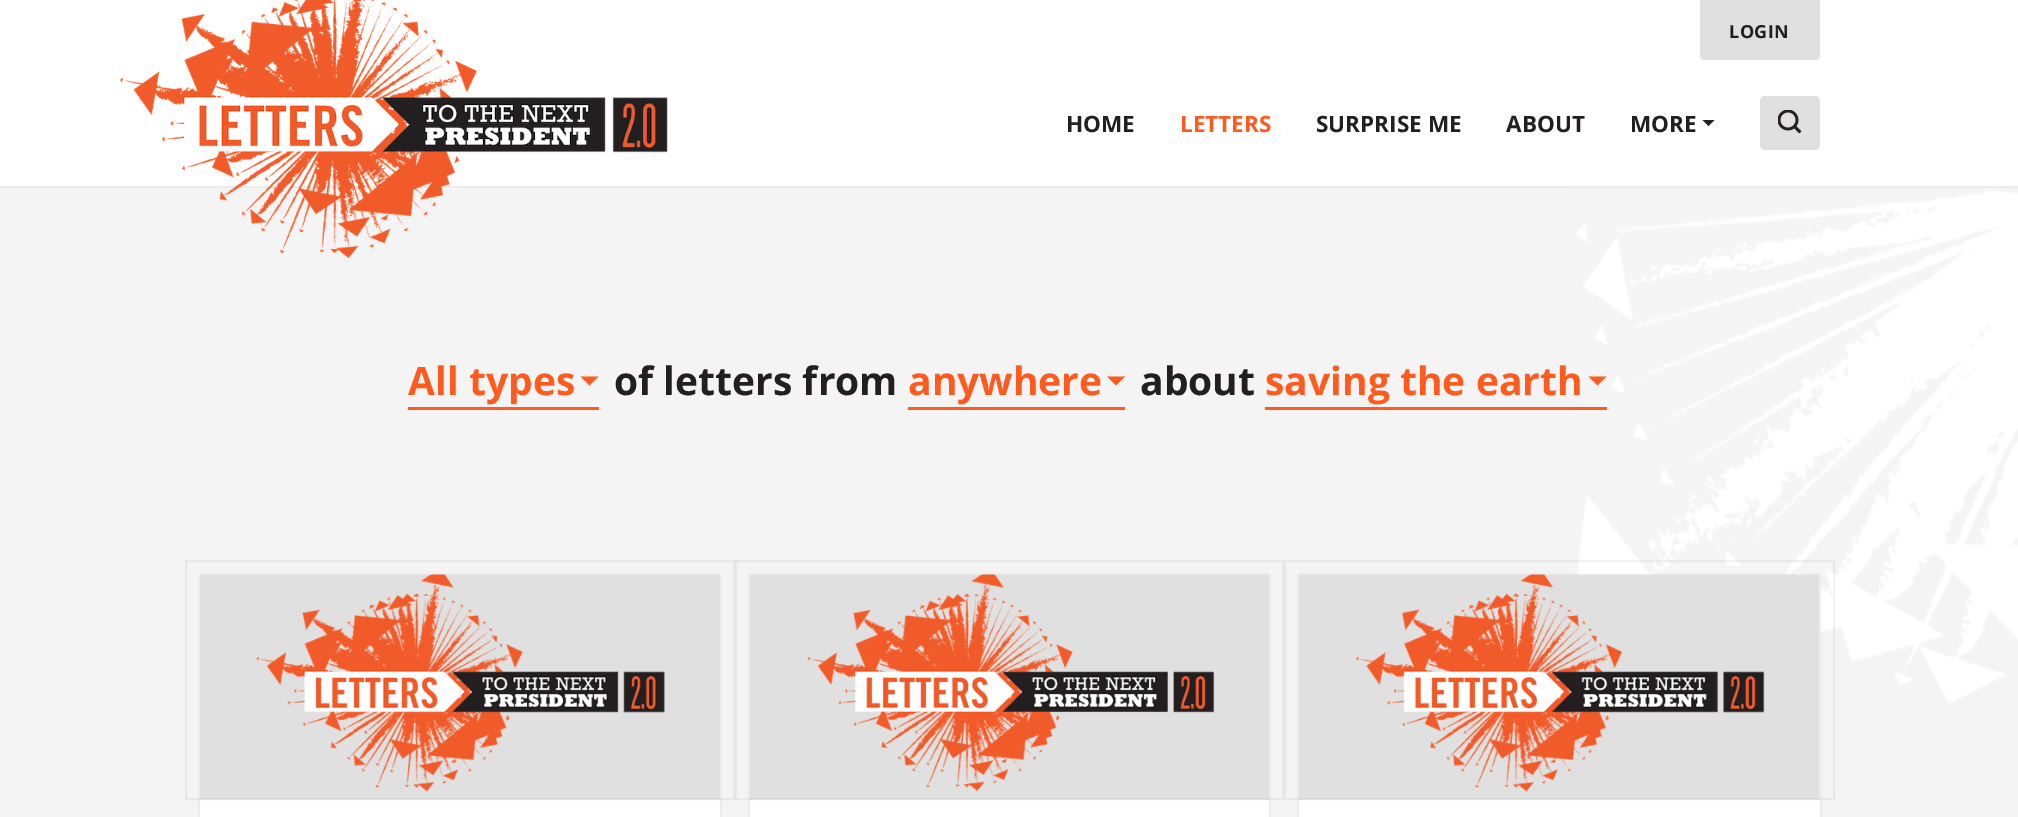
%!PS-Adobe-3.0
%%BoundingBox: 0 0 2018 817
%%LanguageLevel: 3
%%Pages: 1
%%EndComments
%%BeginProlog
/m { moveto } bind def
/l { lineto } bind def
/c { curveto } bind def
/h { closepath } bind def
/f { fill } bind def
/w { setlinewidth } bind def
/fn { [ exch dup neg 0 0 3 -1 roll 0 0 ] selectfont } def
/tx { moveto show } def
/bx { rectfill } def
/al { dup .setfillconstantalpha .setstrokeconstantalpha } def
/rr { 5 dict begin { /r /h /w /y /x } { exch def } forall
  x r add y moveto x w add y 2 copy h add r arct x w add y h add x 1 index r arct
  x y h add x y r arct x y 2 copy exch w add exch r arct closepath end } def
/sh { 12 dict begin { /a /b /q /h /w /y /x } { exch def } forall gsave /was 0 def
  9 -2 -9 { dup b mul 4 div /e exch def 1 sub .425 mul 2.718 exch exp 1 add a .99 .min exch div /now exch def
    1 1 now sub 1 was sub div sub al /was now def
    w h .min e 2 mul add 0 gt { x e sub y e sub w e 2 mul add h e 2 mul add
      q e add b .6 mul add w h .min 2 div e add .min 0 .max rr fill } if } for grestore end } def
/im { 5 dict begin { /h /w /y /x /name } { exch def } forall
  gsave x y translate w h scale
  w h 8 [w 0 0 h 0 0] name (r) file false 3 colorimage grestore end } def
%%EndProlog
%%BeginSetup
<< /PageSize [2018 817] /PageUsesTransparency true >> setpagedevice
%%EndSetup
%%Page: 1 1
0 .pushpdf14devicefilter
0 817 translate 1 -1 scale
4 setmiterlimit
1 setgray
0 0 2018 817 bx
0.957 setgray
0 188 2018 629 bx
0.929 setgray
0 186 2018 2 bx
(image0.raw) 120 0 548 258 im
0.878 setgray
1700 0 m 1820 0 l 1820 55 l 1820 58 1818 60 1815 60 c 1705 60 l 1702 60 1700 58 1700 55 c h f
/OpenSans-Bold 18 fn
0.137 0.122 0.125 setrgbcolor
1729 38 m 0.5 0 (LOGIN) ashow
/OpenSans-Bold 22.5 fn
(HOME) 1066 132 tx
1 0.357 0.122 setrgbcolor
(LETTERS) 1180 132 tx
0.137 0.122 0.125 setrgbcolor
(SURPRISE ME) 1316 132 tx
(ABOUT) 1506 132 tx
(MORE) 1630 132 tx
1702.5 120 m 1714.5 120 l 1708.5 126 l h f
0.878 setgray
1760 96 60 54 5 rr f
(image1.raw) 1778 110 24 24 im
(image2.raw) 1571 190 447 514 im
1 0.357 0.122 setrgbcolor
408 407 191 3 bx
/OpenSans-Bold 39 fn
(All types) 408 395 tx
580.5 376.5 m 598.5 376.5 l 589.5 385.5 l h f
0.137 0.122 0.125 setrgbcolor
(of letters from) 614 395 tx
1 0.357 0.122 setrgbcolor
908 407 217 3 bx
(anywhere) 908 395 tx
1107 376.5 m 1125 376.5 l 1116 385.5 l h f
0.137 0.122 0.125 setrgbcolor
(about) 1140 395 tx
1 0.357 0.122 setrgbcolor
1265 407 342 3 bx
(saving the earth) 1265 395 tx
1588.5 376.5 m 1606.5 376.5 l 1597.5 385.5 l h f
0 setgray
200 575 520 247 0 1.5 0.1 sh
1 setgray
200 799 520 18 bx
(image3.raw) 199 574 521 226 im
0.05 al
0 setgray
2 w
186 561 548 238 rectstroke
1 al
750 575 519 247 0 1.5 0.1 sh
1 setgray
750 799 519 18 bx
(image4.raw) 750 574 519 226 im
0.05 al
0 setgray
736 561 547 238 rectstroke
1 al
1299 575 521 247 0 1.5 0.1 sh
1 setgray
1299 575 521 242 bx
(image5.raw) 1299 574 521 226 im
0.05 al
0 setgray
1285 561 549 238 rectstroke
.poppdf14devicefilter showpage
%%EOF
